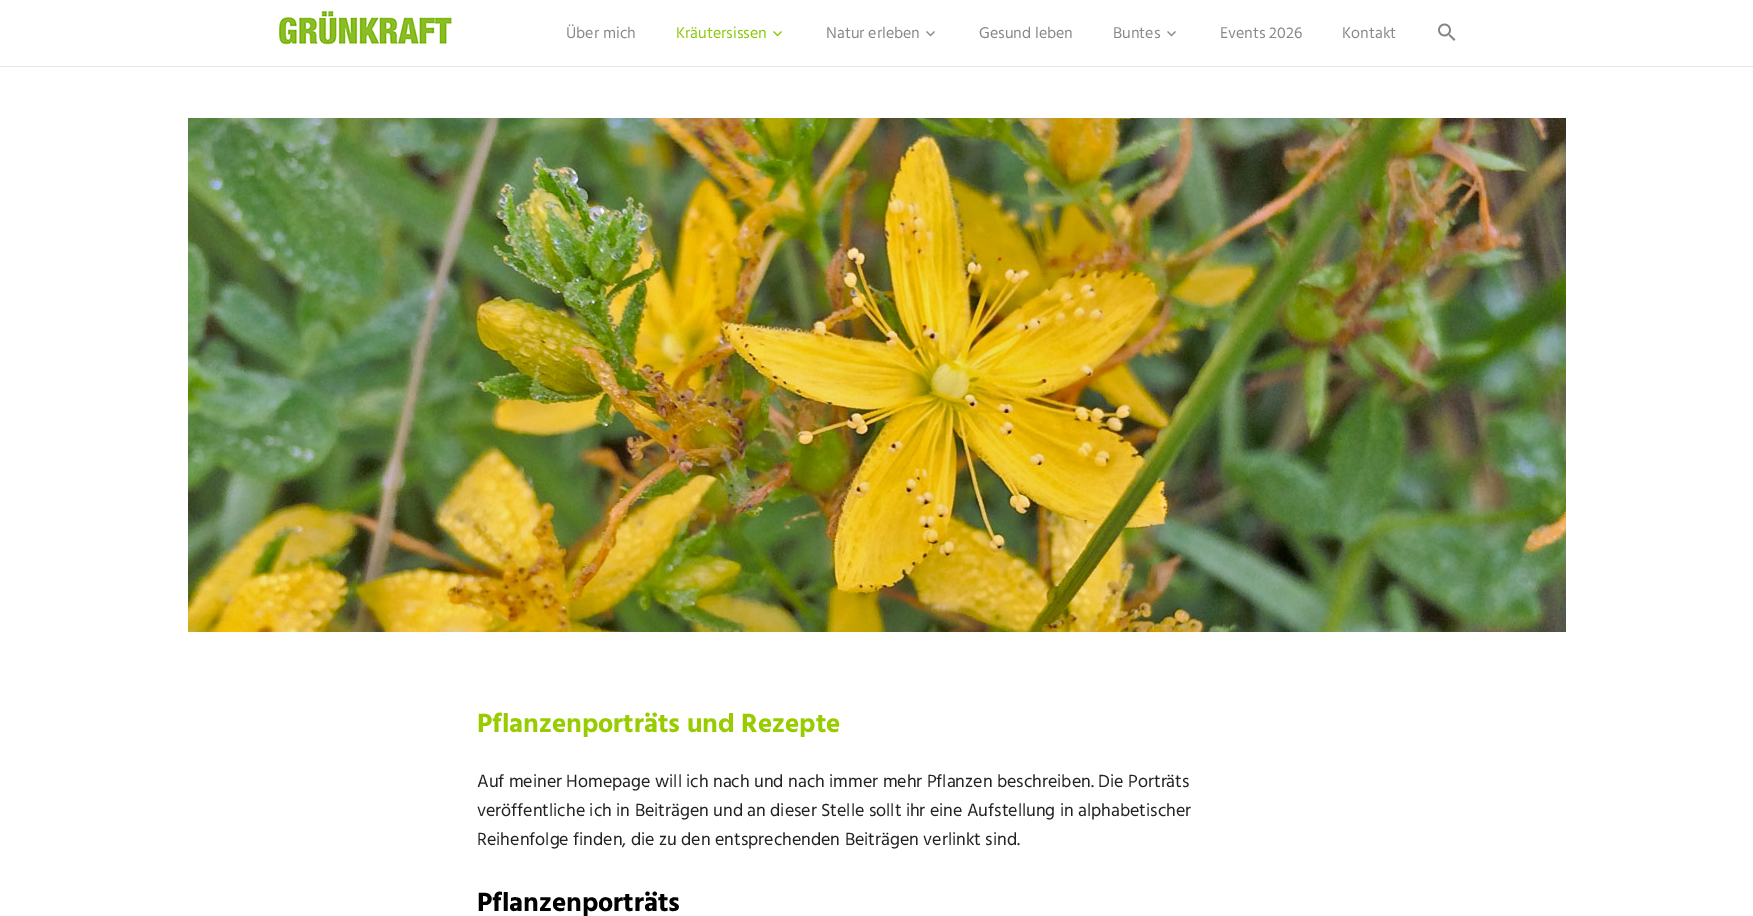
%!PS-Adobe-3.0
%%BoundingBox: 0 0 1753 916
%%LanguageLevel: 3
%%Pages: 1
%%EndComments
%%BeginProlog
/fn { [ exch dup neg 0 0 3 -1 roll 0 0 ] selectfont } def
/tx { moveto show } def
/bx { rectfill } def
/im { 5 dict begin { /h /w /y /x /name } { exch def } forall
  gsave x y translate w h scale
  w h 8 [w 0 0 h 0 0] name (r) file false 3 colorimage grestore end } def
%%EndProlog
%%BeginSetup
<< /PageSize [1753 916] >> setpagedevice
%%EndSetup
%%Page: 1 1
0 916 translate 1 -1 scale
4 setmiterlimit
1 setgray
0 0 1753 916 bx
0.898 setgray
0 66 1753 1 bx
(image0.raw) 278 10 174 36 im
/Hind-Regular 16 fn
0.541 0.537 0.537 setrgbcolor
(Über mich) 566 38 tx
0.553 0.788 0.043 setrgbcolor
(Kräutersissen) 676 38 tx
(image1.raw) 773 31 9 6 im
0.541 0.537 0.537 setrgbcolor
(Natur erleben) 826 38 tx
(image2.raw) 926 31 9 6 im
(Gesund leben) 979 38 tx
(Buntes) 1113 38 tx
(image2.raw) 1167 31 9 6 im
(Events 2026) 1220 38 tx
(Kontakt) 1342 38 tx
(image3.raw) 1438 23 18 18 im
(image4.raw) 188 118 1378 514 im
/Hind-Bold 27 fn
0.6 0.8 0 setrgbcolor
(Pflanzenporträts und Rezepte) 477 732 tx
/Hind-Regular 18 fn
0.133 setgray
(Auf meiner Homepage will ich nach und nach immer mehr Pflanzen beschreiben. Die Porträts) 477 787 tx
(veröffentliche ich in Beiträgen und an dieser Stelle sollt ihr eine Aufstellung in alphabetischer) 477 816 tx
(Reihenfolge finden, die zu den entsprechenden Beiträgen verlinkt sind.) 477 845 tx
/Hind-Bold 27 fn
0 setgray
(Pflanzenporträts) 477 911 tx
showpage
%%EOF
